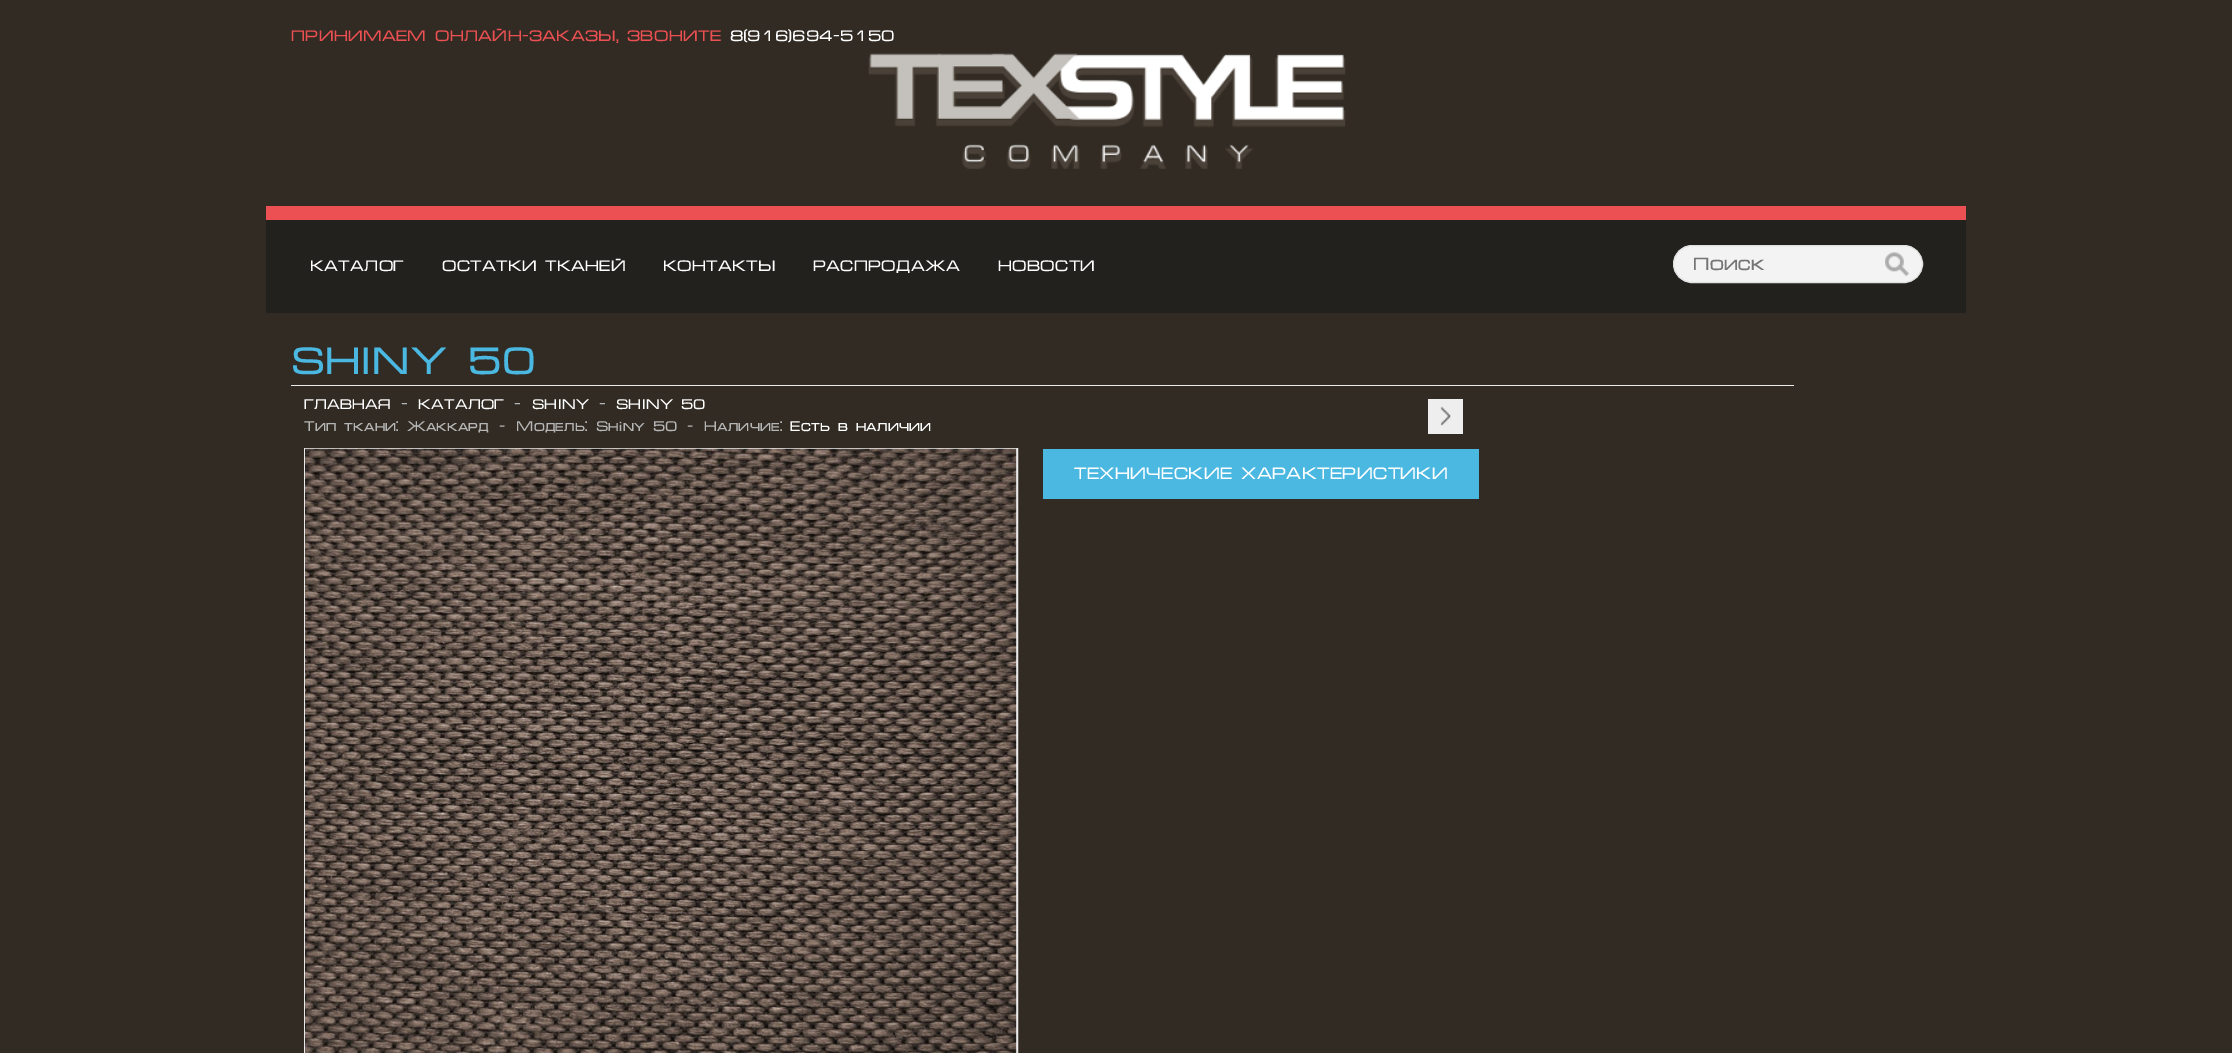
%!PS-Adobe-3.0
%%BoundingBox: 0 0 2232 1053
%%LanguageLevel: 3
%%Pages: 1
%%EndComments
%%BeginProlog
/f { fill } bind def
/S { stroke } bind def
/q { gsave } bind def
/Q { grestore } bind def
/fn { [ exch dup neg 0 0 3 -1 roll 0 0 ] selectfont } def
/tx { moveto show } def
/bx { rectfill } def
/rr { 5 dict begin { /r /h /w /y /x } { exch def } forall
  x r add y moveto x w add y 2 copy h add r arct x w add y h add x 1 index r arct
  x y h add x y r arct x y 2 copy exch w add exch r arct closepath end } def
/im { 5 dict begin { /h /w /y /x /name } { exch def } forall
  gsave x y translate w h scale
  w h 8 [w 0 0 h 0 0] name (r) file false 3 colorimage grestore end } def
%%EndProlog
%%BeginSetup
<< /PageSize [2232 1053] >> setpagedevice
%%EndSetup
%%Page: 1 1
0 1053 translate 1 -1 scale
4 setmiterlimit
0.192 0.169 0.137 setrgbcolor
0 0 2232 1053 bx
/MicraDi-Regular 15 fn
0.929 0.314 0.325 setrgbcolor
(ПРИНИМАЕМ ОНЛАЙН-ЗАКАЗЫ, ЗВОНИТЕ) 291 41 tx
1 setgray
(8\(916\)694-5150) 730 41 tx
(image0.raw) 868 53 478 116 im
0.929 0.314 0.325 setrgbcolor
266 206 1700 14 bx
0.137 0.129 0.118 setrgbcolor
266 220 1700 93 bx
1 setgray
(КАТАЛОГ) 310 271 tx
(ОСТАТКИ ТКАНЕЙ) 442 271 tx
(КОНТАКТЫ) 663 271 tx
(РАСПРОДАЖА) 813 271 tx
(НОВОСТИ) 998 271 tx
0.953 setgray
1673.5 245.5 249 37 18.5 rr q f Q
0.875 setgray
S
/MicraDi-Regular 17.5 fn
0.459 setgray
(Поиск) 1693 270 tx
(image1.raw) 1885 252 24 25 im
0.918 setgray
291 385 1503 1 bx
/MicraDi-Regular 37.5 fn
0.294 0.722 0.886 setrgbcolor
(SHINY 50) 291 374 tx
/MicraDi-Regular 13.75 fn
1 setgray
(ГЛАВНАЯ) 304 409 tx
/MicraDi-Regular 15 fn
0.714 setgray
(-) 401 409 tx
/MicraDi-Regular 13.75 fn
1 setgray
(КАТАЛОГ) 418 409 tx
/MicraDi-Regular 15 fn
0.714 setgray
(-) 514 409 tx
/MicraDi-Regular 13.75 fn
1 setgray
(SHINY) 532 409 tx
/MicraDi-Regular 15 fn
0.714 setgray
(-) 599 409 tx
/MicraDi-Regular 13.75 fn
1 setgray
(SHINY 50) 616 409 tx
0.714 setgray
(Тип ткани: Жаккард) 304 431 tx
(-) 499 431 tx
(Модель: Shiny 50) 516 431 tx
(-) 687 431 tx
(Наличие:) 704 431 tx
1 setgray
(Есть в наличии) 790 431 tx
0.933 setgray
1428 399 35 35 bx
(image2.raw) 1440 406 11 20 im
1 setgray
1016 449 1 604 bx
0.918 setgray
304.5 448.5 713 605 rectstroke
(image3.raw) 305 448 712 605 im
0.294 0.722 0.886 setrgbcolor
1043 449 436 50 bx
/MicraDi-Regular 16.25 fn
1 setgray
(ТЕХНИЧЕСКИЕ ХАРАКТЕРИСТИКИ) 1074 479 tx
showpage
%%EOF
